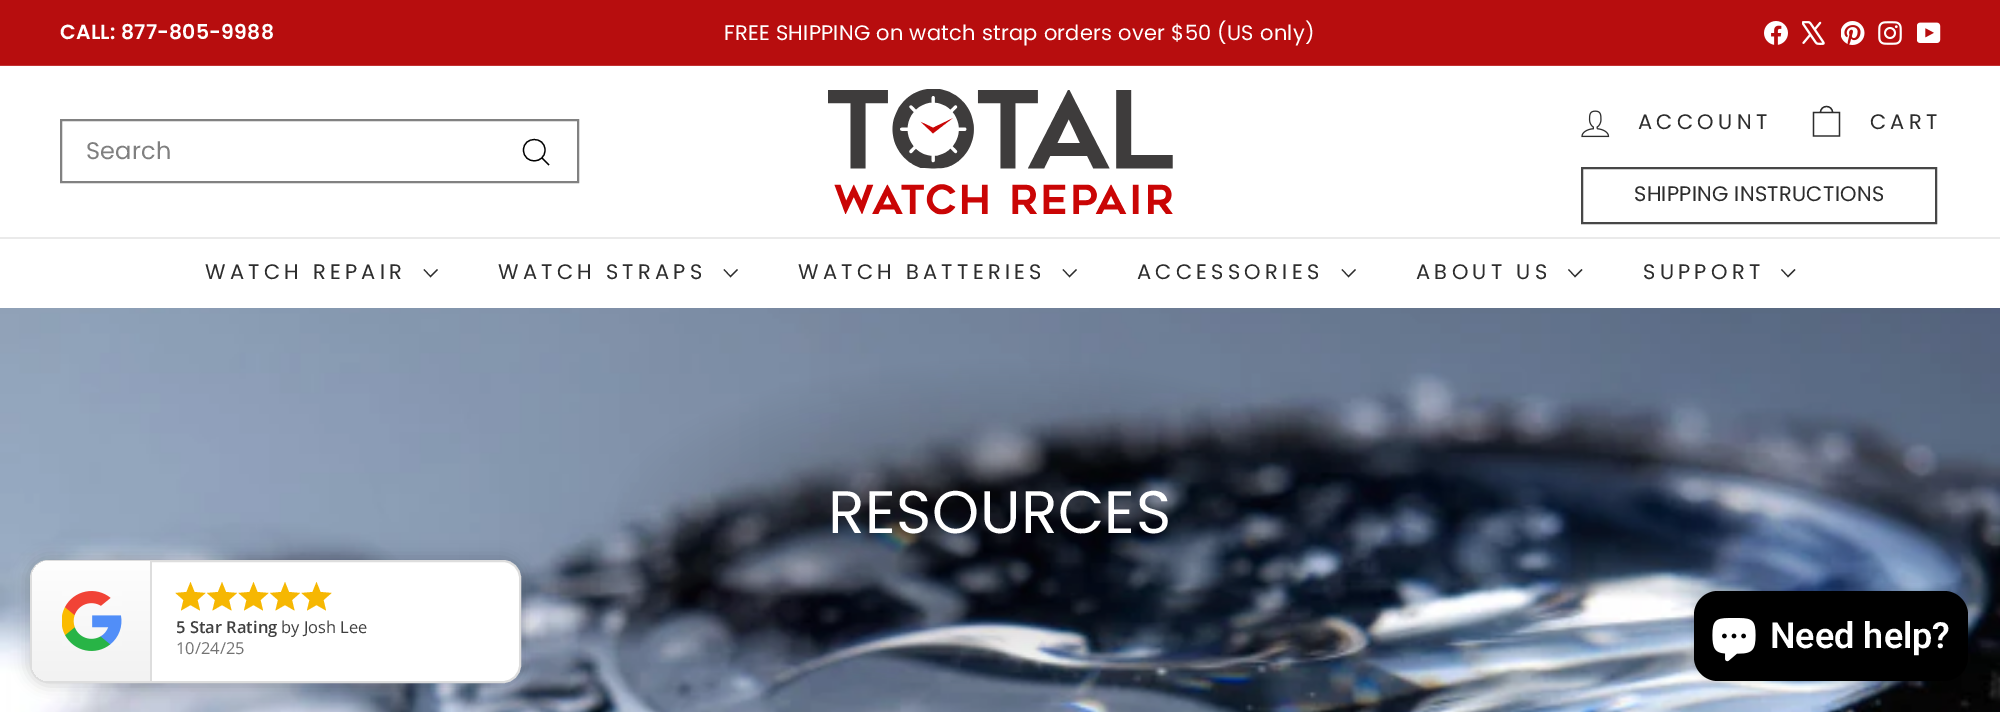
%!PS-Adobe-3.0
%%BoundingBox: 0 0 2000 712
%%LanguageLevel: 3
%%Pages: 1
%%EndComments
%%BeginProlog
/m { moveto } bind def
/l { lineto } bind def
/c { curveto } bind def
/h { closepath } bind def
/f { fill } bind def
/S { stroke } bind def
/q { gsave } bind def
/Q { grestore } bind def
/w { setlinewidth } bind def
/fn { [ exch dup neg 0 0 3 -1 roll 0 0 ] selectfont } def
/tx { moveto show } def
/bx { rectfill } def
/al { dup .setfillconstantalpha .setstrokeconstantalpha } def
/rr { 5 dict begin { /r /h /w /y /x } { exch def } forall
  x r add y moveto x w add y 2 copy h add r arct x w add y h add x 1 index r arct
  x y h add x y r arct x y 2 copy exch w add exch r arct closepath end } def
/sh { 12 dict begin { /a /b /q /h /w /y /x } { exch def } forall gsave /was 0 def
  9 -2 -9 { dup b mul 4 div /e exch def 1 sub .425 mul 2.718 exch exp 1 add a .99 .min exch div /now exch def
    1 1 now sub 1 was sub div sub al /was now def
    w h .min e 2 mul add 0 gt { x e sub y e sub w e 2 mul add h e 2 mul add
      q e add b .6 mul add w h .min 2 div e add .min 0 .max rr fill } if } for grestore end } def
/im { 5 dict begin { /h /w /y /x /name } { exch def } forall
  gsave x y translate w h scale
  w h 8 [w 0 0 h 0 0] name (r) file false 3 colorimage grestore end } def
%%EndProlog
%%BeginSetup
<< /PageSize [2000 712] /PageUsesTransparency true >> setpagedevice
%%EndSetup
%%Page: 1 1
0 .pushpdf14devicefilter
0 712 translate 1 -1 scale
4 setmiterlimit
1 setgray
0 0 2000 712 bx
0.718 0.051 0.055 setrgbcolor
0 0 2000 65 bx
0.761 0.192 0.196 setrgbcolor
0 65 2000 1 bx
/Poppins-SemiBold 20.4 fn
1 setgray
60 39 m 0.25 0 (CALL: 877-805-9988) ashow
/Poppins-Regular 21 fn
724 40 m 0.25 0 (FREE SHIPPING on watch strap orders over $50 \(US only\)) ashow
(image0.raw) 1764 21 24 24 im
(image1.raw) 1802 21 23 24 im
(image2.raw) 1841 21 24 24 im
(image3.raw) 1878 21 24 24 im
(image4.raw) 1917 22 24 21 im
0.506 setgray
2 w
61 120 517 62 rectstroke
/Poppins-Regular 24 fn
0.502 setgray
86 159 m 0.25 0 (Search) ashow
0 setgray
1.2 w
545 150 m 545 164.5 523.5 164.5 523.5 150 c 523.5 136 545 136 545 150 c 549 165 m 542 158 l S
(image5.raw) 828 89 345 126 im
(image6.raw) 1581 110 29 28 im
/Poppins-Regular 21 fn
0.176 setgray
1638 129 m 4.25 0 (ACCOUNT) ashow
1.3 w
1820.5 112.5 m 1820.5 104.5 1832.5 104.5 1832.5 112.5 c 1813.5 112.5 m 1839.5 112.5 l 1839.5 136 l 1813.5 136 l h S
1870 129 m 4.25 0 (CART) ashow
0.278 setgray
2 w
1582 168 354 55 rectstroke
0.176 setgray
1634 201 m 0.25 0 (SHIPPING INSTRUCTIONS) ashow
0.918 setgray
0 237 2000 2 bx
0.176 setgray
205 279 m 4.25 0 (WATCH REPAIR) ashow
1.1 w
424 269.5 m 430.5 276.5 l 437.5 269.5 l S
498 279 m 4.25 0 (WATCH STRAPS) ashow
724 269.5 m 730.5 276.5 l 737.5 269.5 l S
798 279 m 4.25 0 (WATCH BATTERIES) ashow
1063 269.5 m 1069.5 276.5 l 1076.5 269.5 l S
1137 279 m 4.25 0 (ACCESSORIES) ashow
1342 269.5 m 1348.5 276.5 l 1355.5 269.5 l S
1416 279 m 4.25 0 (ABOUT US) ashow
1568.5 269.5 m 1575 276.5 l 1582 269.5 l S
1643 279 m 4.25 0 (SUPPORT) ashow
1781.5 269.5 m 1788 276.5 l 1795 269.5 l S
(image7.raw) 0 308 2000 404 im
/Poppins-Regular 60 fn
1 setgray
828 533 m 0.5 0 (RESOURCES) ashow
0 setgray
27 557 497 129 21 7.5 0.15 sh
1 setgray
31 561 489 121 17 rr q f Q
0.867 setgray
2 w
S
q 49 561 m 152 561 l 152 681 l 49 681 l 39.5 681 32 673.5 32 664 c 32 578 l 32 568.5 39.5 561 49 561 c h clip newpath
<< /ShadingType 2 /ColorSpace /DeviceRGB /Coords [91 561 91 681] /Extend [true true] /Function << /FunctionType 2 /Domain [0 1] /C0 [0.996 0.996 0.996] /C1 [0.949 0.949 0.949] /N 1 >> >> shfill Q
150 561 2 120 bx
(image8.raw) 62 591 60 60 im
0.965 0.718 0.008 setrgbcolor
190.5 605 m 181 610.5 l 183.5 600 l 175.5 593 l 186.5 592 l 190.5 582 l 194.5 592 l 205.5 593 l 197.5 600 l 200 610.5 l h 222 605 m 212.5 610.5 l 215 600 l 207 593 l 218 592 l 222 582 l 226 592 l 237 593 l 229 600 l 231.5 610.5 l h f
253.5 605 m 244 610.5 l 246.5 600 l 238.5 593 l 249.5 592 l 253.5 582 l 257.5 592 l 268.5 593 l 260.5 600 l 263 610.5 l h 285 605 m 275.5 610.5 l 278 600 l 270 593 l 281 592 l 285 582 l 289 592 l 300 593 l 292 600 l 294.5 610.5 l h f
316.5 605 m 307 610.5 l 309.5 600 l 301.5 593 l 312.5 592 l 316.5 582 l 320.5 592 l 331.5 593 l 323.5 600 l 326 610.5 l h f
/OpenSans-SemiBold 16.5 fn
0.251 setgray
(5 Star Rating) 176 633 tx
/OpenSans-Regular 16.5 fn
(by Josh Lee) 281 633 tx
0.451 setgray
(10/24/25) 176 654 tx
0 setgray
1694 591 274 90 24 4 0.15 sh
1694 591 274 90 24 rr f
(image9.raw) 1712 618 44 44 im
/Roboto-SemiBold 36 fn
1 setgray
(Need help?) 1770 648 tx
.poppdf14devicefilter showpage
%%EOF
